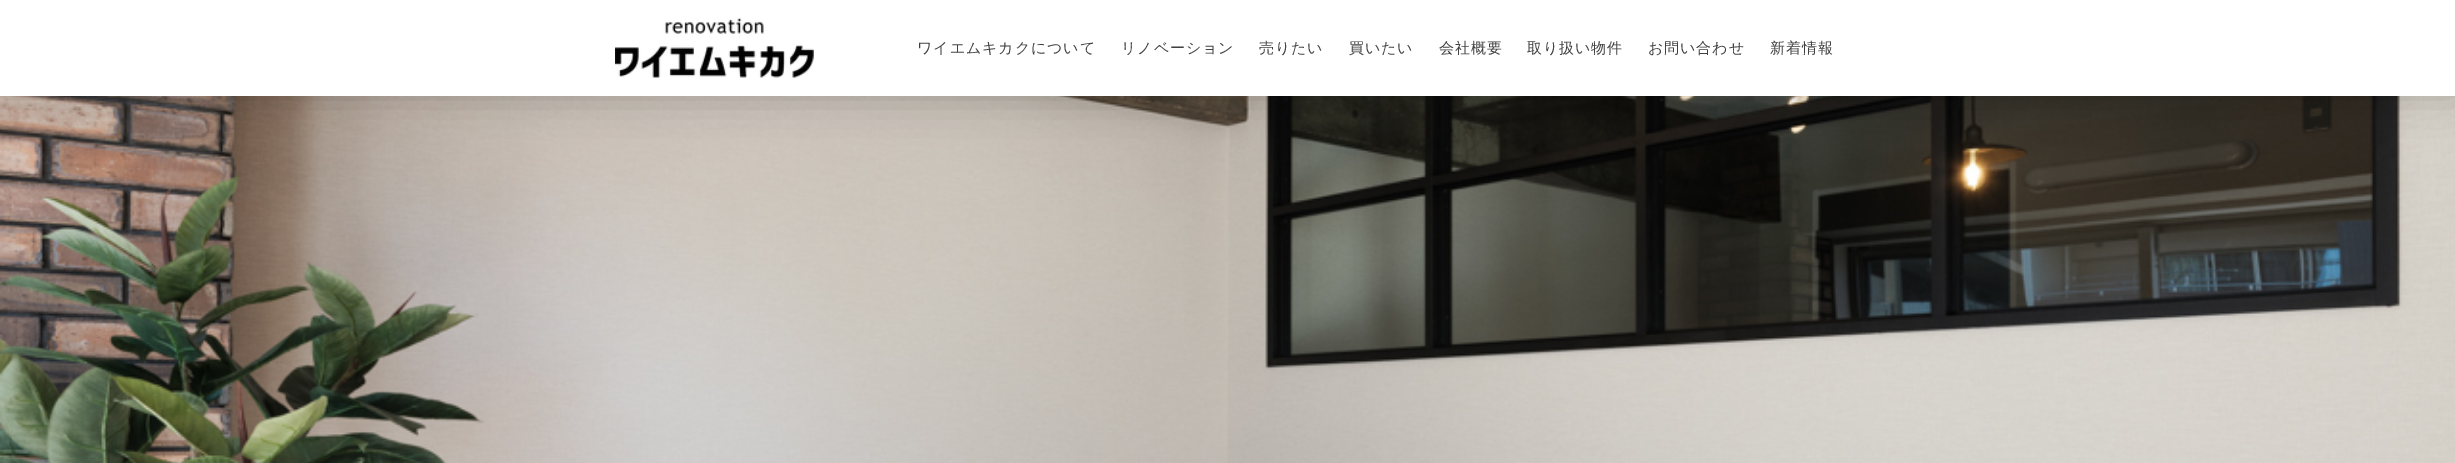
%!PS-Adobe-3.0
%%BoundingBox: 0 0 2455 463
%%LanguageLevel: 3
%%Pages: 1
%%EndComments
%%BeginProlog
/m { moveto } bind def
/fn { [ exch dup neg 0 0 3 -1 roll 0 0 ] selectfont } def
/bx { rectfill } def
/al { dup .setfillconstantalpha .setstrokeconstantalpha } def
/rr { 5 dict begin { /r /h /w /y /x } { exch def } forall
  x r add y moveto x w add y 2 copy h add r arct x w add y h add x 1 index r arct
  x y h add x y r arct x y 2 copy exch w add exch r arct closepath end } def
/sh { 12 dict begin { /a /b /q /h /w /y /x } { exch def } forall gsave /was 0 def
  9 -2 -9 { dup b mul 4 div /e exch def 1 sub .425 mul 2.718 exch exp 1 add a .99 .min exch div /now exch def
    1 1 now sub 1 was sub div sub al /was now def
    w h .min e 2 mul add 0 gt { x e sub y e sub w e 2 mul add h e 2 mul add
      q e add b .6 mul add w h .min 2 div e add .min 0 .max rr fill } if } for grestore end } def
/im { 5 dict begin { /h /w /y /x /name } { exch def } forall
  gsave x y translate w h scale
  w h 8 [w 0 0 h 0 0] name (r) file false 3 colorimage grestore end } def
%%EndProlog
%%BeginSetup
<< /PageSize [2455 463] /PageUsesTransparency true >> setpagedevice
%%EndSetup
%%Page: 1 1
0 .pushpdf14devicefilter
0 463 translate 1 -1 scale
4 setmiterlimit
1 setgray
0 0 2455 463 bx
(image1.raw) 0 96 2455 367 im
0 setgray
0 0 2455 96 0 19 0.2 sh
1 setgray
0 0 2455 96 bx
(image0.raw) 615 18 199 60 im
/WenQuanYiZenHei-Medium 15 fn
0.251 setgray
917 53 m 0.9 0 (ワイエムキカクについて) ashow
1121 53 m 0.9 0 (リノベーション) ashow
1259 53 m 0.9 0 (売りたい) ashow
1349 53 m 0.9 0 (買いたい) ashow
1439 53 m 0.9 0 (会社概要) ashow
1527 53 m 0.9 0 (取り扱い物件) ashow
1648 53 m 0.9 0 (お問い合わせ) ashow
1770 53 m 0.9 0 (新着情報) ashow
.poppdf14devicefilter showpage
%%EOF
